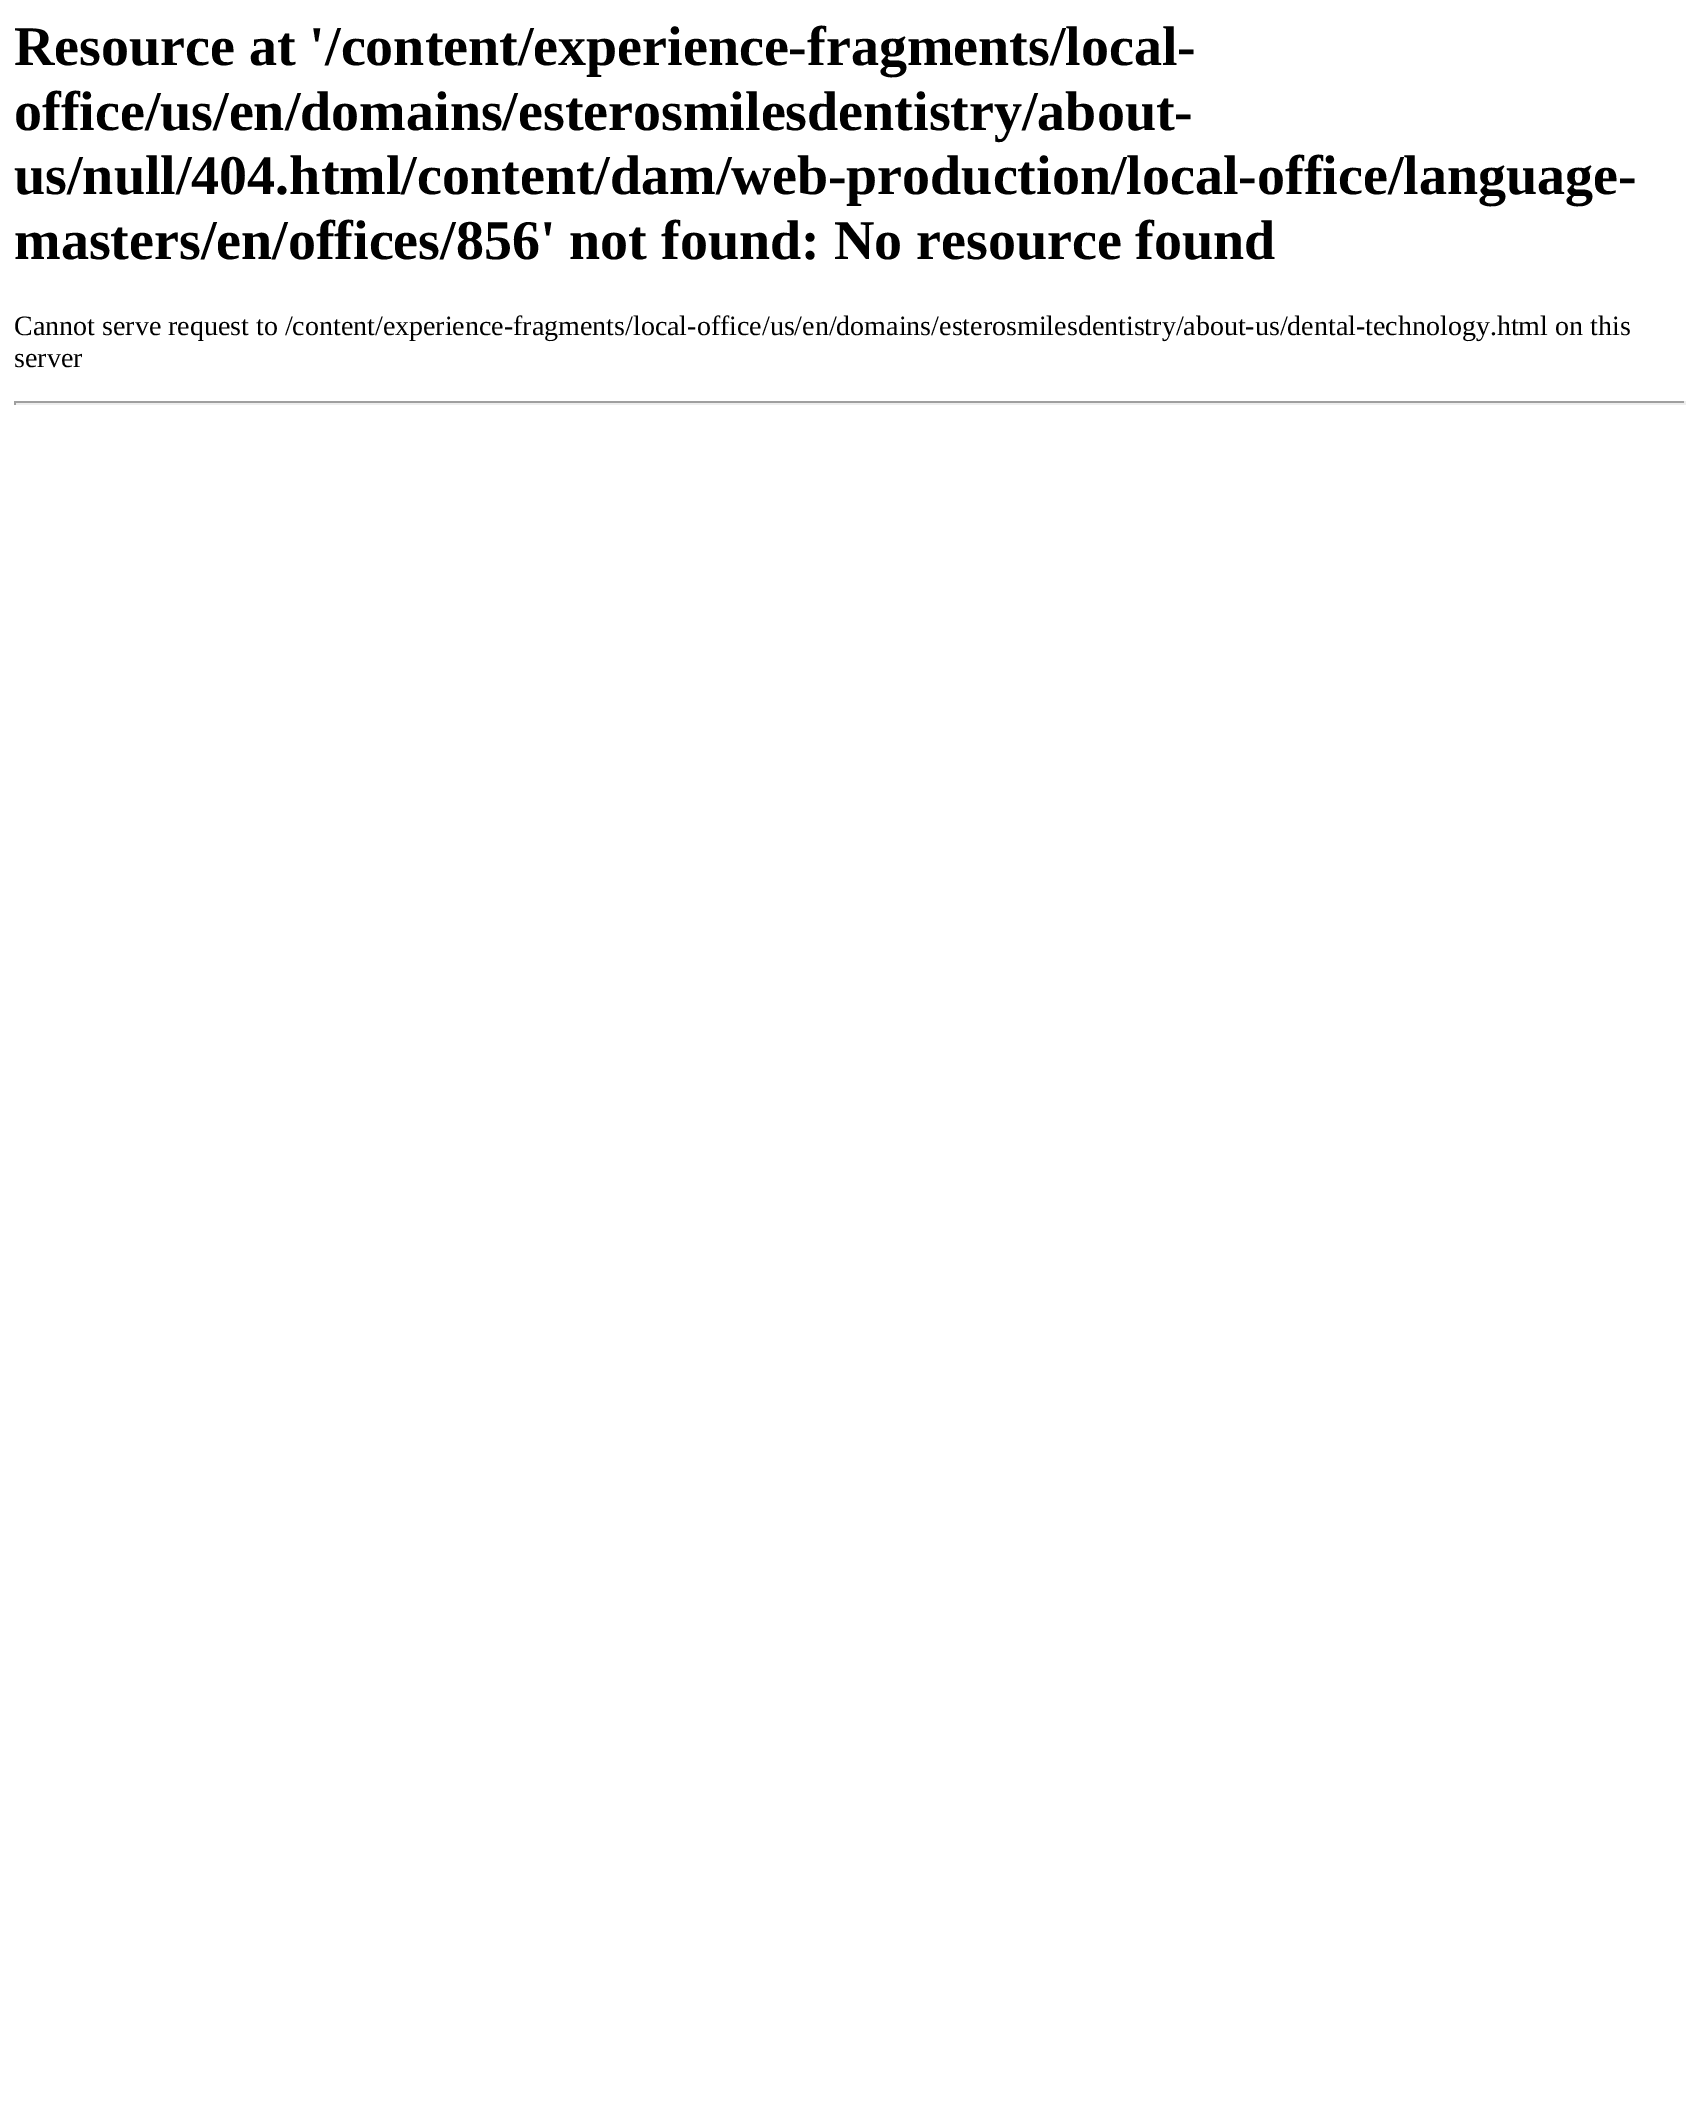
%!PS-Adobe-3.0
%%BoundingBox: 0 0 1699 2124
%%LanguageLevel: 3
%%Pages: 1
%%EndComments
%%BeginProlog
/fn { [ exch dup neg 0 0 3 -1 roll 0 0 ] selectfont } def
/tx { moveto show } def
/bx { rectfill } def
%%EndProlog
%%BeginSetup
<< /PageSize [1699 2124] >> setpagedevice
%%EndSetup
%%Page: 1 1
0 2124 translate 1 -1 scale
4 setmiterlimit
1 setgray
0 0 1699 2124 bx
/LiberationSerif-Bold 56 fn
0 setgray
(Resource at '/content/experience-fragments/local-) 14 65 tx
(office/us/en/domains/esterosmilesdentistry/about-) 14 130 tx
(us/null/404.html/content/dam/web-production/local-office/language-) 14 194 tx
(masters/en/offices/856' not found: No resource found) 14 259 tx
/LiberationSerif-Regular 28 fn
(Cannot serve request to /content/experience-fragments/local-office/us/en/domains/esterosmilesdentistry/about-us/dental-technology.html on this) 14 335 tx
(server) 14 367 tx
0.624 setgray
14 401 1671 2 bx
0.933 setgray
1684 401 2 4 bx
14 403 1671 2 bx
0.624 setgray
14 401 2 4 bx
showpage
%%EOF
